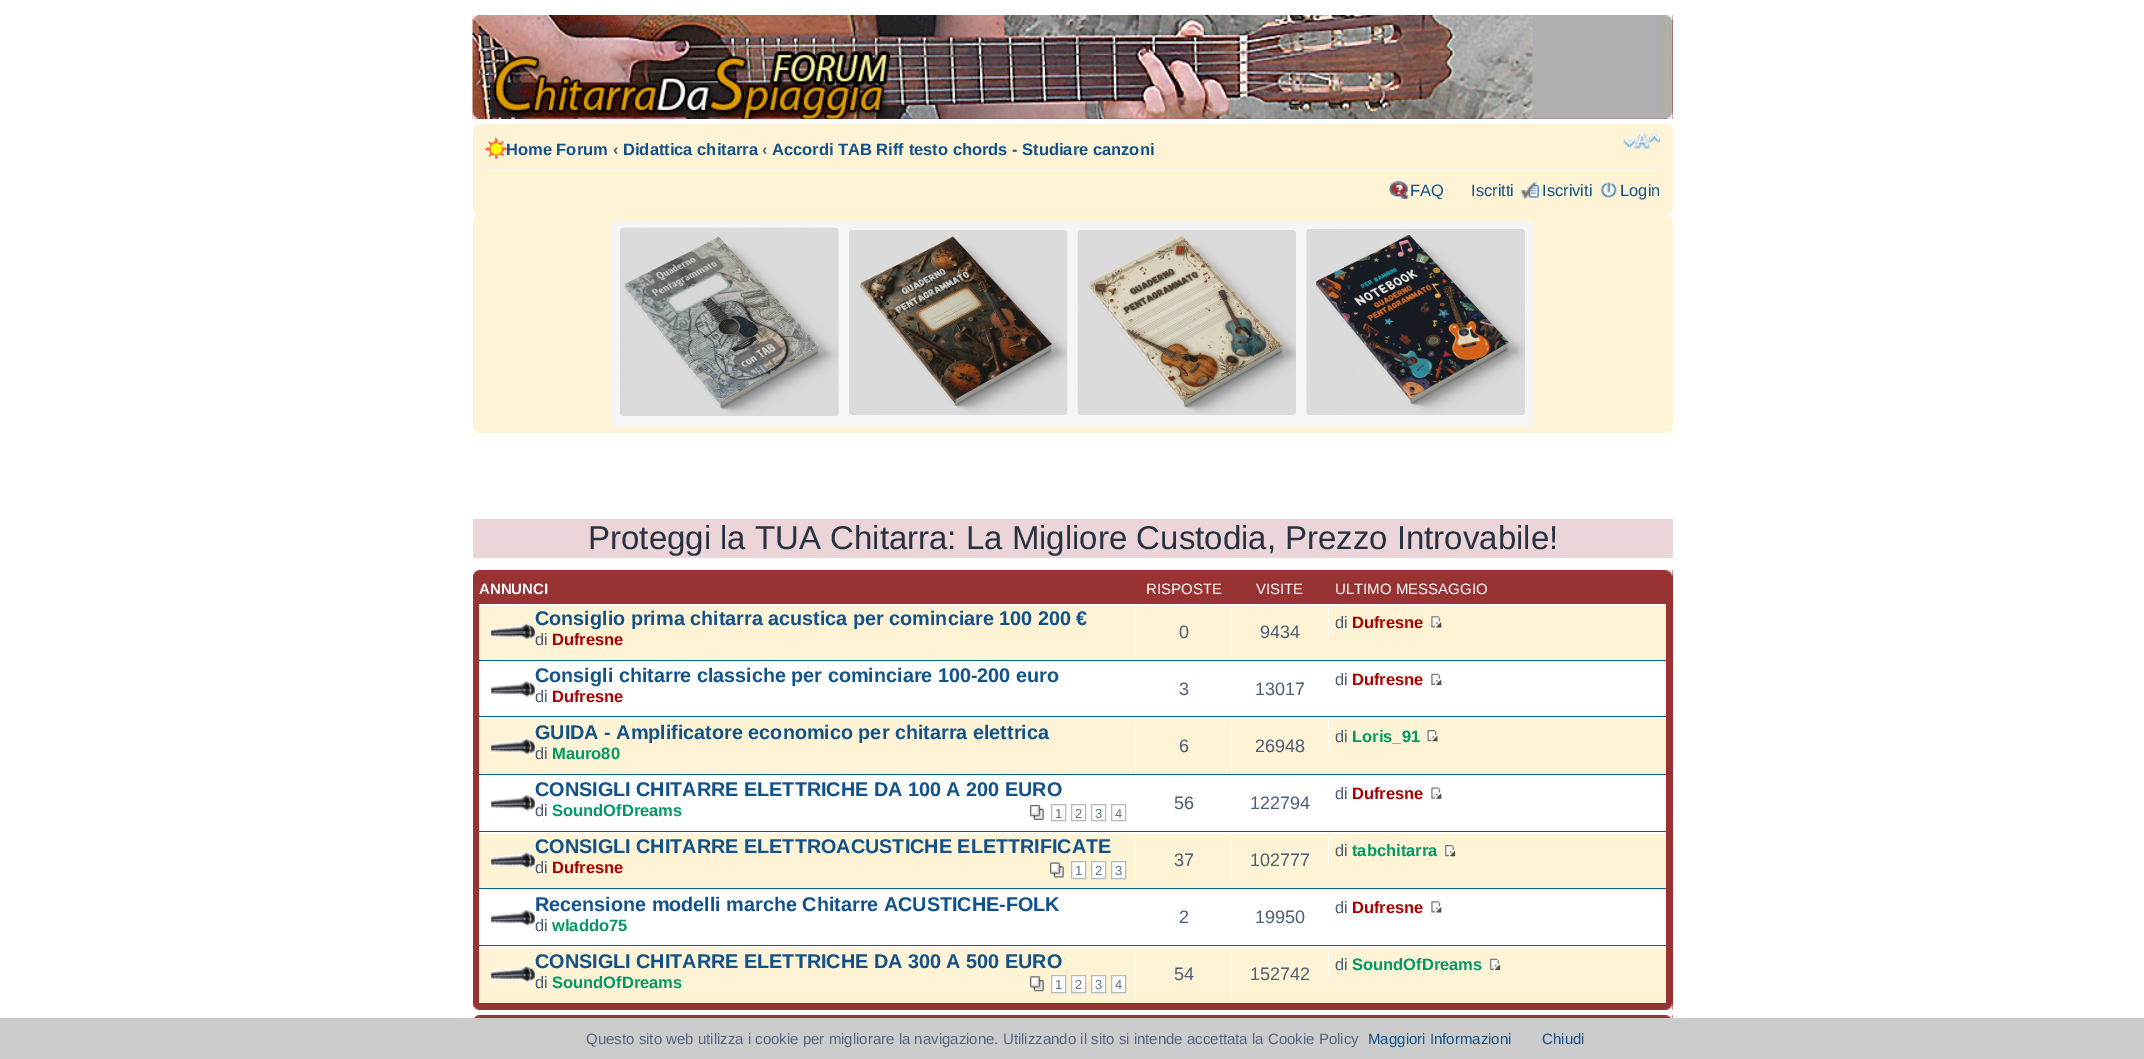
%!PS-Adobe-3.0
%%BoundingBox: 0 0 2144 1059
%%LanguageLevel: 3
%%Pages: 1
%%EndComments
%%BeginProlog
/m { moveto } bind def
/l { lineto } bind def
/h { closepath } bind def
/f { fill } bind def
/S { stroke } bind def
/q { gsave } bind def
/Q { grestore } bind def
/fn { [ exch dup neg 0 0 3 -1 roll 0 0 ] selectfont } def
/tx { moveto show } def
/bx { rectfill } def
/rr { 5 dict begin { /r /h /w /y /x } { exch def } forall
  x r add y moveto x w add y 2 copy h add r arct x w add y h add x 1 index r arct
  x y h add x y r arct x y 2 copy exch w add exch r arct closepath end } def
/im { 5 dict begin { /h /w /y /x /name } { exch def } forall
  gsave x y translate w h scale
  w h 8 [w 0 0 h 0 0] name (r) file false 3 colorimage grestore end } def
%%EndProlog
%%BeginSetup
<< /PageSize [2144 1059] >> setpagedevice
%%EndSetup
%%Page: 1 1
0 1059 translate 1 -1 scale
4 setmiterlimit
1 setgray
0 0 2144 1059 bx
0.6 0.2 0.2 setrgbcolor
473 15 1200 104 bx
(image0.raw) 472 15 1201 104 im
(image1.raw) 472 15 7 7 im
(image2.raw) 1666 15 7 6 im
(image3.raw) 472 112 7 7 im
(image4.raw) 1666 112 7 7 im
0.996 0.953 0.831 setrgbcolor
473 124 1200 309 bx
(image5.raw) 473 124 6 6 im
(image6.raw) 1666 124 7 6 im
1 setgray
485 169 1175 1 bx
(image7.raw) 485 137 23 22 im
/LiberationSans-Bold 16.5 fn
0.063 0.322 0.537 setrgbcolor
(Home Forum) 506 155 tx
0.325 0.392 0.51 setrgbcolor
(‹) 613 155 tx
0.063 0.322 0.537 setrgbcolor
(Didattica chitarra) 623 155 tx
0.325 0.392 0.51 setrgbcolor
(‹) 762 155 tx
0.063 0.322 0.537 setrgbcolor
(Accordi TAB Riff testo chords - Studiare canzoni) 772 155 tx
(image8.raw) 1623 133 37 16 im
(image9.raw) 1388 181 21 18 im
/LiberationSans-Regular 16.5 fn
(FAQ) 1410 196 tx
(Iscritti) 1471 196 tx
(image10.raw) 1521 182 18 17 im
(Iscriviti) 1542 196 tx
(image11.raw) 1601 182 16 16 im
(Login) 1620 196 tx
(image12.raw) 473 209 6 6 im
(image13.raw) 1666 209 7 6 im
(image14.raw) 473 215 6 6 im
(image15.raw) 1666 215 7 6 im
0.961 setgray
611 221 923 205 5 rr f
(image16.raw) 620 227 219 189 im
(image17.raw) 849 230 219 185 im
(image18.raw) 1077 230 219 185 im
(image19.raw) 1306 229 219 186 im
(image20.raw) 473 426 6 7 im
(image21.raw) 1666 426 7 7 im
0.925 0.835 0.847 setrgbcolor
473 519 1200 39 bx
/LiberationSans-Regular 33 fn
0.157 0.192 0.247 setrgbcolor
(Proteggi la TUA Chitarra: La Migliore Custodia, Prezzo Introvabile!) 588 549 tx
0.6 0.2 0.2 setrgbcolor
473 570 1200 440 bx
(image22.raw) 473 570 7 7 im
(image23.raw) 1665 570 8 7 im
/LiberationSans-Bold 15 fn
1 setgray
(ANNUNCI) 479 594 tx
/LiberationSans-Regular 15 fn
(RISPOSTE) 1146 594 tx
(VISITE) 1256 594 tx
(ULTIMO MESSAGGIO) 1335 594 tx
0.996 0.953 0.831 setrgbcolor
479 605 1187 55 bx
1 setgray
479 604 1187 1 bx
0 0.376 0.561 setrgbcolor
479 660 1187 1 bx
(image24.raw) 491 622 44 19 im
/LiberationSans-Bold 19.8 fn
0.063 0.322 0.537 setrgbcolor
(Consiglio prima chitarra acustica per cominciare 100 200 €) 535 625 tx
/LiberationSans-Regular 16.5 fn
0.298 0.365 0.467 setrgbcolor
(di) 535 645 tx
/LiberationSans-Bold 16.5 fn
0.667 0 0 setrgbcolor
(Dufresne) 552 645 tx
1 setgray
1328 608 1 28 bx
/LiberationSans-Regular 16.5 fn
0.298 0.365 0.467 setrgbcolor
(di) 1335 628 tx
/LiberationSans-Bold 16.5 fn
0.667 0 0 setrgbcolor
(Dufresne) 1352 628 tx
(image25.raw) 1431 616 11 12 im
1 setgray
1135 608 1 50 bx
/LiberationSans-Regular 18 fn
0.298 0.365 0.467 setrgbcolor
(0) 1179 638 tx
1 setgray
1231 608 1 50 bx
0.298 0.365 0.467 setrgbcolor
(9434) 1260 638 tx
1 setgray
479 661 1187 58 bx
0 0.376 0.561 setrgbcolor
479 716 1187 1 bx
(image26.raw) 491 680 44 18 im
/LiberationSans-Bold 19.8 fn
0.063 0.322 0.537 setrgbcolor
(Consigli chitarre classiche per cominciare 100-200 euro) 535 682 tx
/LiberationSans-Regular 16.5 fn
0.298 0.365 0.467 setrgbcolor
(di) 535 702 tx
/LiberationSans-Bold 16.5 fn
0.667 0 0 setrgbcolor
(Dufresne) 552 702 tx
/LiberationSans-Regular 16.5 fn
0.298 0.365 0.467 setrgbcolor
(di) 1335 685 tx
/LiberationSans-Bold 16.5 fn
0.667 0 0 setrgbcolor
(Dufresne) 1352 685 tx
(image27.raw) 1431 673 11 12 im
/LiberationSans-Regular 18 fn
0.298 0.365 0.467 setrgbcolor
(3) 1179 695 tx
(13017) 1255 695 tx
0.996 0.953 0.831 setrgbcolor
479 719 1187 55 bx
0 0.376 0.561 setrgbcolor
479 774 1187 1 bx
(image24.raw) 491 737 44 19 im
/LiberationSans-Bold 19.8 fn
0.063 0.322 0.537 setrgbcolor
(GUIDA - Amplificatore economico per chitarra elettrica) 535 739 tx
/LiberationSans-Regular 16.5 fn
0.298 0.365 0.467 setrgbcolor
(di) 535 759 tx
/LiberationSans-Bold 16.5 fn
0 0.6 0.4 setrgbcolor
(Mauro80) 552 759 tx
1 setgray
1328 721 1 29 bx
/LiberationSans-Regular 16.5 fn
0.298 0.365 0.467 setrgbcolor
(di) 1335 742 tx
/LiberationSans-Bold 16.5 fn
0 0.6 0.4 setrgbcolor
(Loris_91) 1352 742 tx
(image28.raw) 1427 730 11 12 im
1 setgray
1135 721 1 50 bx
/LiberationSans-Regular 18 fn
0.298 0.365 0.467 setrgbcolor
(6) 1179 752 tx
1 setgray
1231 721 1 50 bx
0.298 0.365 0.467 setrgbcolor
(26948) 1255 752 tx
1 setgray
479 775 1187 59 bx
0 0.376 0.561 setrgbcolor
479 831 1187 1 bx
(image29.raw) 491 794 44 18 im
/LiberationSans-Bold 19.8 fn
0.063 0.322 0.537 setrgbcolor
(CONSIGLI CHITARRE ELETTRICHE DA 100 A 200 EURO) 535 796 tx
/LiberationSans-Regular 16.5 fn
0.298 0.365 0.467 setrgbcolor
(di) 535 816 tx
/LiberationSans-Bold 16.5 fn
0 0.6 0.4 setrgbcolor
(SoundOfDreams) 552 816 tx
(image30.raw) 1030 805 14 15 im
0.706 0.729 0.753 setrgbcolor
1051.5 804.5 14 16 rectstroke
/LiberationSans-Regular 13 fn
0.361 0.459 0.549 setrgbcolor
(1) 1055 818 tx
0.706 0.729 0.753 setrgbcolor
1071.5 804.5 14 16 rectstroke
0.361 0.459 0.549 setrgbcolor
(2) 1075 818 tx
0.706 0.729 0.753 setrgbcolor
1091.5 804.5 14 16 rectstroke
0.361 0.459 0.549 setrgbcolor
(3) 1095 818 tx
0.706 0.729 0.753 setrgbcolor
1111.5 804.5 14 16 rectstroke
0.361 0.459 0.549 setrgbcolor
(4) 1115 818 tx
/LiberationSans-Regular 16.5 fn
0.298 0.365 0.467 setrgbcolor
(di) 1335 799 tx
/LiberationSans-Bold 16.5 fn
0.667 0 0 setrgbcolor
(Dufresne) 1352 799 tx
(image31.raw) 1431 787 11 12 im
/LiberationSans-Regular 18 fn
0.298 0.365 0.467 setrgbcolor
(56) 1174 809 tx
(122794) 1250 809 tx
0.996 0.953 0.831 setrgbcolor
479 834 1187 54 bx
0 0.376 0.561 setrgbcolor
479 888 1187 1 bx
(image32.raw) 491 851 44 18 im
/LiberationSans-Bold 19.8 fn
0.063 0.322 0.537 setrgbcolor
(CONSIGLI CHITARRE ELETTROACUSTICHE ELETTRIFICATE) 535 853 tx
/LiberationSans-Regular 16.5 fn
0.298 0.365 0.467 setrgbcolor
(di) 535 873 tx
/LiberationSans-Bold 16.5 fn
0.667 0 0 setrgbcolor
(Dufresne) 552 873 tx
(image33.raw) 1050 862 14 16 im
1 setgray
1071.5 861.5 m 1085.5 861.5 l 1085.5 878.5 l 1071.5 878.5 l h q f Q
0.706 0.729 0.753 setrgbcolor
S
/LiberationSans-Regular 13 fn
0.361 0.459 0.549 setrgbcolor
(1) 1075 875 tx
1 setgray
1091.5 861.5 m 1105.5 861.5 l 1105.5 878.5 l 1091.5 878.5 l h q f Q
0.706 0.729 0.753 setrgbcolor
S
0.361 0.459 0.549 setrgbcolor
(2) 1095 875 tx
1 setgray
1111.5 861.5 m 1125.5 861.5 l 1125.5 878.5 l 1111.5 878.5 l h q f Q
0.706 0.729 0.753 setrgbcolor
S
0.361 0.459 0.549 setrgbcolor
(3) 1115 875 tx
1 setgray
1328 836 1 29 bx
/LiberationSans-Regular 16.5 fn
0.298 0.365 0.467 setrgbcolor
(di) 1335 856 tx
/LiberationSans-Bold 16.5 fn
0 0.6 0.4 setrgbcolor
(tabchitarra) 1352 856 tx
(image34.raw) 1444 845 12 12 im
1 setgray
1135 836 1 49 bx
/LiberationSans-Regular 18 fn
0.298 0.365 0.467 setrgbcolor
(37) 1174 866 tx
1 setgray
1231 836 1 49 bx
0.298 0.365 0.467 setrgbcolor
(102777) 1250 866 tx
1 setgray
479 889 1187 56 bx
0 0.376 0.561 setrgbcolor
479 945 1187 1 bx
(image29.raw) 491 909 44 18 im
/LiberationSans-Bold 19.8 fn
0.063 0.322 0.537 setrgbcolor
(Recensione modelli marche Chitarre ACUSTICHE-FOLK) 535 911 tx
/LiberationSans-Regular 16.5 fn
0.298 0.365 0.467 setrgbcolor
(di) 535 931 tx
/LiberationSans-Bold 16.5 fn
0 0.6 0.4 setrgbcolor
(wladdo75) 552 931 tx
/LiberationSans-Regular 16.5 fn
0.298 0.365 0.467 setrgbcolor
(di) 1335 913 tx
/LiberationSans-Bold 16.5 fn
0.667 0 0 setrgbcolor
(Dufresne) 1352 913 tx
(image35.raw) 1431 901 11 12 im
/LiberationSans-Regular 18 fn
0.298 0.365 0.467 setrgbcolor
(2) 1179 923 tx
(19950) 1255 923 tx
0.996 0.953 0.831 setrgbcolor
479 947 1187 56 bx
1 setgray
479 946 1187 1 bx
0 0.376 0.561 setrgbcolor
479 1003 1187 1 bx
(image36.raw) 491 965 44 18 im
/LiberationSans-Bold 19.8 fn
0.063 0.322 0.537 setrgbcolor
(CONSIGLI CHITARRE ELETTRICHE DA 300 A 500 EURO) 535 968 tx
/LiberationSans-Regular 16.5 fn
0.298 0.365 0.467 setrgbcolor
(di) 535 988 tx
/LiberationSans-Bold 16.5 fn
0 0.6 0.4 setrgbcolor
(SoundOfDreams) 552 988 tx
(image37.raw) 1030 976 14 16 im
1 setgray
1051.5 975.5 m 1065.5 975.5 l 1065.5 992.5 l 1051.5 992.5 l h q f Q
0.706 0.729 0.753 setrgbcolor
S
/LiberationSans-Regular 13 fn
0.361 0.459 0.549 setrgbcolor
(1) 1055 989 tx
1 setgray
1071.5 975.5 m 1085.5 975.5 l 1085.5 992.5 l 1071.5 992.5 l h q f Q
0.706 0.729 0.753 setrgbcolor
S
0.361 0.459 0.549 setrgbcolor
(2) 1075 989 tx
1 setgray
1091.5 975.5 m 1105.5 975.5 l 1105.5 992.5 l 1091.5 992.5 l h q f Q
0.706 0.729 0.753 setrgbcolor
S
0.361 0.459 0.549 setrgbcolor
(3) 1095 989 tx
1 setgray
1111.5 975.5 m 1125.5 975.5 l 1125.5 992.5 l 1111.5 992.5 l h q f Q
0.706 0.729 0.753 setrgbcolor
S
0.361 0.459 0.549 setrgbcolor
(4) 1115 989 tx
1 setgray
1328 950 1 29 bx
/LiberationSans-Regular 16.5 fn
0.298 0.365 0.467 setrgbcolor
(di) 1335 970 tx
/LiberationSans-Bold 16.5 fn
0 0.6 0.4 setrgbcolor
(SoundOfDreams) 1352 970 tx
(image38.raw) 1489 958 12 12 im
1 setgray
1135 950 1 50 bx
/LiberationSans-Regular 18 fn
0.298 0.365 0.467 setrgbcolor
(54) 1174 980 tx
1 setgray
1231 950 1 50 bx
0.298 0.365 0.467 setrgbcolor
(152742) 1250 980 tx
(image39.raw) 473 1003 6 7 im
(image40.raw) 1666 1003 7 7 im
0.6 0.2 0.2 setrgbcolor
473 1015 1200 3 bx
(image41.raw) 473 1015 7 3 im
(image42.raw) 1665 1015 8 3 im
0.8 setgray
0 1018 2144 41 bx
/LiberationSans-Regular 15 fn
0.325 0.392 0.51 setrgbcolor
(Questo sito web utilizza i cookie per migliorare la navigazione. Utilizzando il sito si intende accettata la Cookie Policy) 586 1044 tx
0.063 0.322 0.537 setrgbcolor
(Maggiori Informazioni) 1368 1044 tx
(Chiudi) 1542 1044 tx
showpage
%%EOF
